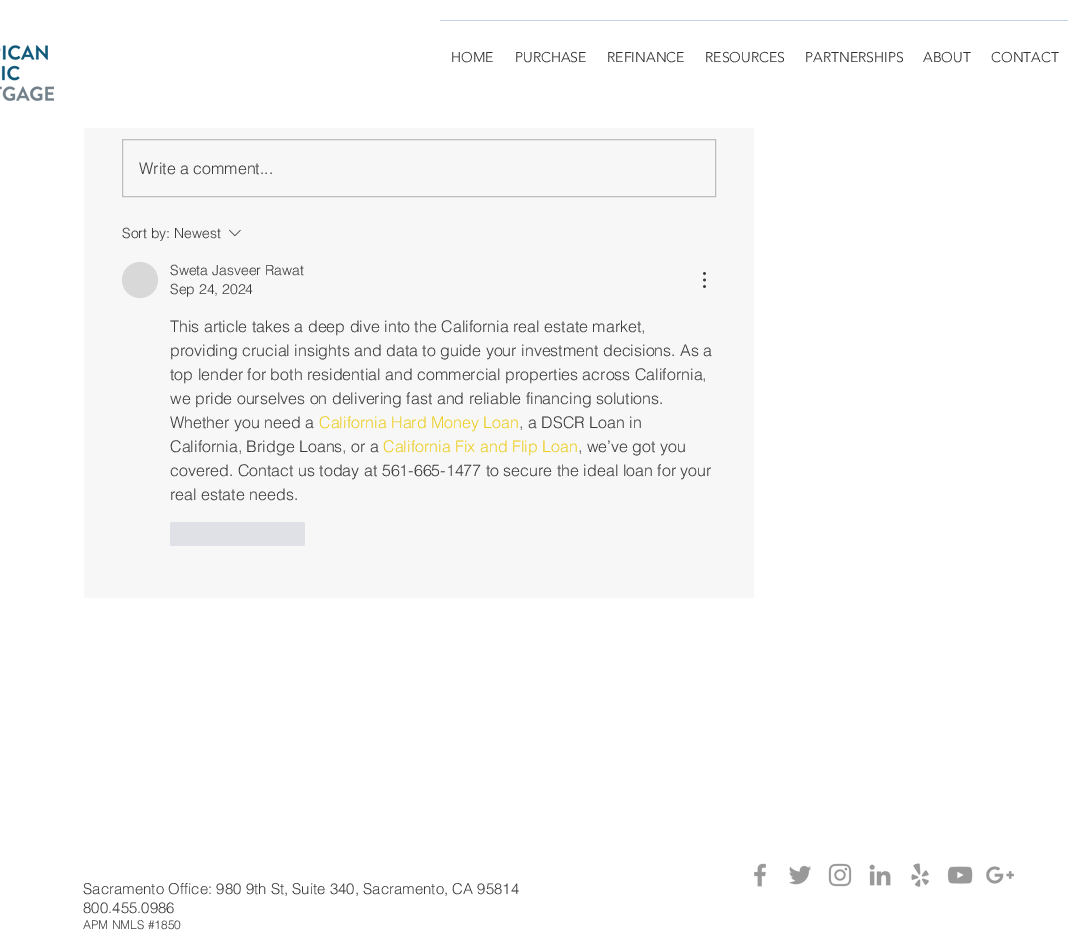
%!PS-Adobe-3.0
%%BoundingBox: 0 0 1088 940
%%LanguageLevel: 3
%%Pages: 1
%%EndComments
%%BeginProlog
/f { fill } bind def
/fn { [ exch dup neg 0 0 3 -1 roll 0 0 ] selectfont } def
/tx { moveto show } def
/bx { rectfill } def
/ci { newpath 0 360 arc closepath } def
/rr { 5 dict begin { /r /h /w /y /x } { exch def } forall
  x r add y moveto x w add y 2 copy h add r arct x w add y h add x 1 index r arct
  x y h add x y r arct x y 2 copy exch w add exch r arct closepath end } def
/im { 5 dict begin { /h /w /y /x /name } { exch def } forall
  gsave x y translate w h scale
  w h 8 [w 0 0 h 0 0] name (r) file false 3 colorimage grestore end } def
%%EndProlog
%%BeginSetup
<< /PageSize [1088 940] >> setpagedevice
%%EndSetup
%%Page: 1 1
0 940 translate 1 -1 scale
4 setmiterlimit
1 setgray
0 0 1088 940 bx
(image0.raw) 0 45 54 56 im
0.753 0.824 0.898 setrgbcolor
440 20 628 1 bx
/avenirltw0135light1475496-Light 14 fn
0.184 0.18 0.18 setrgbcolor
(HOME) 451 62 tx
(PURCHASE) 515 62 tx
(REFINANCE) 607 62 tx
(RESOURCES) 705 62 tx
(PARTNERSHIPS) 805 62 tx
(ABOUT) 923 62 tx
(CONTACT) 991 62 tx
0.969 setgray
84 128 670 470 bx
0.749 0.745 0.745 setrgbcolor
122.5 139.5 593 57 rectstroke
/helvetica-Light 16 fn
0.231 0.227 0.227 setrgbcolor
(Write a comment...) 139 174 tx
/helvetica-Light 14 fn
(Sort by: Newest) 122 238 tx
(image1.raw) 229 229 12 8 im
0.847 setgray
140 280 18 ci f
0.231 0.227 0.227 setrgbcolor
(Sweta Jasveer Rawat) 170 275 tx
(Sep 24, 2024) 170 294 tx
(image2.raw) 703 272 3 16 im
/helvetica-Light 16 fn
(This article takes a deep dive into the California real estate market,) 170 332 tx
(providing crucial insights and data to guide your investment decisions. As a) 170 356 tx
(top lender for both residential and commercial properties across California,) 170 380 tx
(we pride ourselves on delivering fast and reliable financing solutions.) 170 404 tx
(Whether you need a) 170 428 tx
0.929 0.804 0.122 setrgbcolor
(California Hard Money Loan) 319 428 tx
0.231 0.227 0.227 setrgbcolor
(, a DSCR Loan in) 519 428 tx
(California, Bridge Loans, or a) 170 452 tx
0.929 0.804 0.122 setrgbcolor
(California Fix and Flip Loan) 383 452 tx
0.231 0.227 0.227 setrgbcolor
(, we’ve got you) 578 452 tx
(covered. Contact us today at 561-665-1477 to secure the ideal loan for your) 170 476 tx
(real estate needs.) 170 500 tx
0.878 0.882 0.906 setrgbcolor
170 522 135 24 2 rr f
(image3.raw) 754 863 12 24 im
(image4.raw) 789 865 23 20 im
(image5.raw) 828 863 24 24 im
(image6.raw) 869 864 22 22 im
(image7.raw) 911 863 18 24 im
(image8.raw) 947 866 26 18 im
(image9.raw) 986 866 29 18 im
/helvetica-Light 15 fn
0.231 0.227 0.227 setrgbcolor
(Sacramento Office: 980 9th St, Suite 340, Sacramento, CA 95814) 83 894 tx
(800.455.0986) 83 913 tx
/helvetica-Light 12 fn
(APM NMLS #1850) 83 929 tx
showpage
%%EOF
